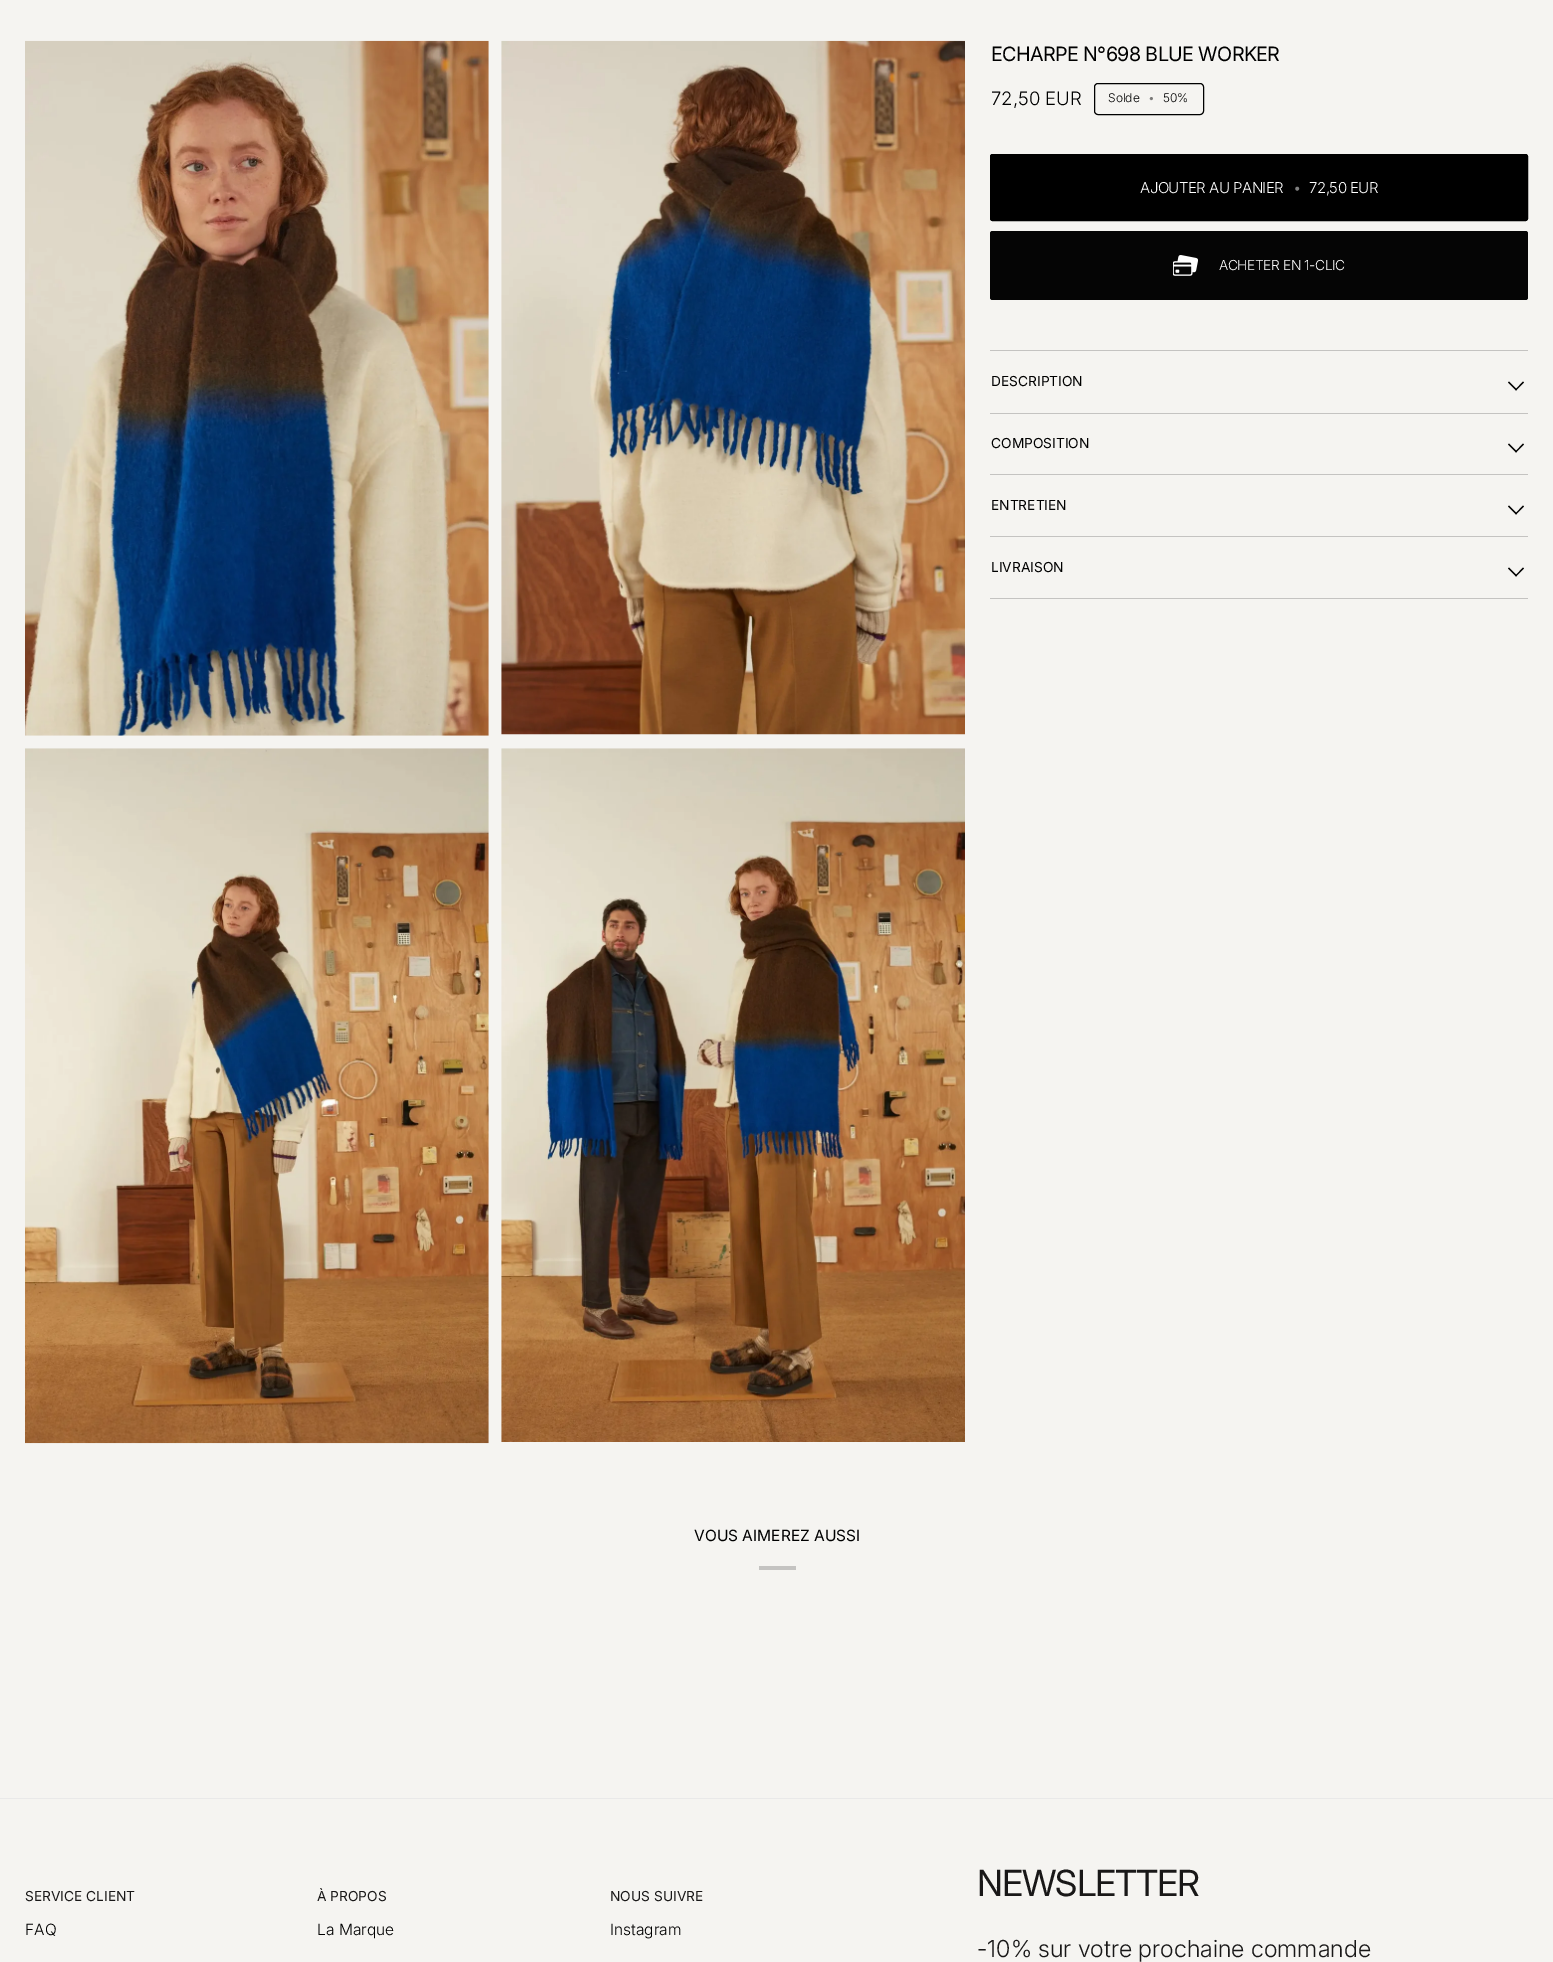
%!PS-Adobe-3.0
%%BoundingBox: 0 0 1553 1962
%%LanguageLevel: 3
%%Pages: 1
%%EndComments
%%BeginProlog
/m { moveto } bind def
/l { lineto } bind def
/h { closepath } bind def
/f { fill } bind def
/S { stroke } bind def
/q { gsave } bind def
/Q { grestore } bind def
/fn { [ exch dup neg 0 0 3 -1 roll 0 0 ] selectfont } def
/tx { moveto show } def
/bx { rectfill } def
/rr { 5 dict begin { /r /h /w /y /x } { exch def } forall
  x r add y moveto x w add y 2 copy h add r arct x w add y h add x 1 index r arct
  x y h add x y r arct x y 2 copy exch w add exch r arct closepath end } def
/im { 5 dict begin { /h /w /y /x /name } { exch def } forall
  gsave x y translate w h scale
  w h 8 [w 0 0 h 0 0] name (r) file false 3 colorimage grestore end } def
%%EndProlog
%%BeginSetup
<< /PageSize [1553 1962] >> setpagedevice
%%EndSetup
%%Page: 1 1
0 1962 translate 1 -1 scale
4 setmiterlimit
0.961 0.957 0.945 setrgbcolor
0 0 1553 1962 bx
(image0.raw) 25 40 464 696 im
(image1.raw) 501 40 464 695 im
(image2.raw) 25 748 464 696 im
(image3.raw) 501 748 464 694 im
/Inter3-Regular 19.75 fn
0 setgray
991 61 m -0.6 0 (ECHARPE N°698 BLUE WORKER) ashow
/Inter-Light 18.5 fn
(72,50 EUR) 991 105 tx
1094.5 83.5 109 31 3.5 rr S
/Inter-Light 12 fn
(Solde) 1108 102 tx
0.482 0.478 0.475 setrgbcolor
(•) 1148 102 tx
0 setgray
(50%) 1163 102 tx
990.5 154.5 537 66 2 rr q f Q
S
/Inter-Light 15 fn
1 setgray
1140 193 m -0.5 0 (AJOUTER AU PANIER) ashow
0.502 setgray
1293 193 m -0.5 0 (•) ashow
1 setgray
1309 193 m -0.5 0 (72,50 EUR) ashow
0.02 setgray
990 231 538 69 2.5 rr f
(image4.raw) 1173 255 25 21 im
/Inter-Light 13.75 fn
1 setgray
1219 270 m -0.4 0 (ACHETER EN 1-CLIC) ashow
0.769 0.765 0.757 setrgbcolor
990 350 538 1 bx
990 413 538 1 bx
/Inter-Regular 13.75 fn
0 setgray
(DESCRIPTION) 991 386 tx
1515.5 389.5 m 1523 381.5 l 1524 382.5 l 1516 390.5 l h f
1508 382.5 m 1509 381.5 l 1517 389.5 l 1516 390.5 l h f
0.769 0.765 0.757 setrgbcolor
990 474 538 1 bx
0 setgray
(COMPOSITION) 991 448 tx
1515.5 451.5 m 1523 443.5 l 1524 444.5 l 1516 452.5 l h f
1508 444.5 m 1509 443.5 l 1517 451.5 l 1516 452.5 l h f
0.769 0.765 0.757 setrgbcolor
990 536 538 1 bx
0 setgray
(ENTRETIEN) 991 510 tx
1515.5 513.5 m 1523 505.5 l 1524 506.5 l 1516 514.5 l h f
1508 506.5 m 1509 505.5 l 1517 513.5 l 1516 514.5 l h f
0.769 0.765 0.757 setrgbcolor
990 598 538 1 bx
0 setgray
(LIVRAISON) 991 572 tx
1515.5 575.5 m 1523 567.5 l 1524 568.5 l 1516 576.5 l h f
1508 568.5 m 1509 567.5 l 1517 575.5 l 1516 576.5 l h f
/Inter-Regular 15.5 fn
(VOUS AIMEREZ AUSSI) 694 1541 tx
0.769 0.765 0.757 setrgbcolor
759 1566 37 4 bx
0.914 setgray
0 1798 1553 1 bx
/Inter-Regular 13.75 fn
0.098 0.094 0.094 setrgbcolor
(SERVICE CLIENT) 25 1901 tx
/Inter-Light 15.5 fn
0 setgray
(FAQ) 25 1935 tx
/Inter-Regular 13.75 fn
0.098 0.094 0.094 setrgbcolor
(À PROPOS) 317 1901 tx
/Inter-Light 15.5 fn
0 setgray
(La Marque) 317 1935 tx
/Inter-Regular 13.75 fn
0.098 0.094 0.094 setrgbcolor
(NOUS SUIVRE) 610 1901 tx
/Inter-Light 15.5 fn
0 setgray
(Instagram) 610 1935 tx
/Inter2-Regular 36 fn
0.098 0.094 0.094 setrgbcolor
977 1896 m -1 0 (NEWSLETTER) ashow
/Inter2-Light 23.4 fn
(-10% sur votre prochaine commande) 977 1957 tx
showpage
%%EOF
